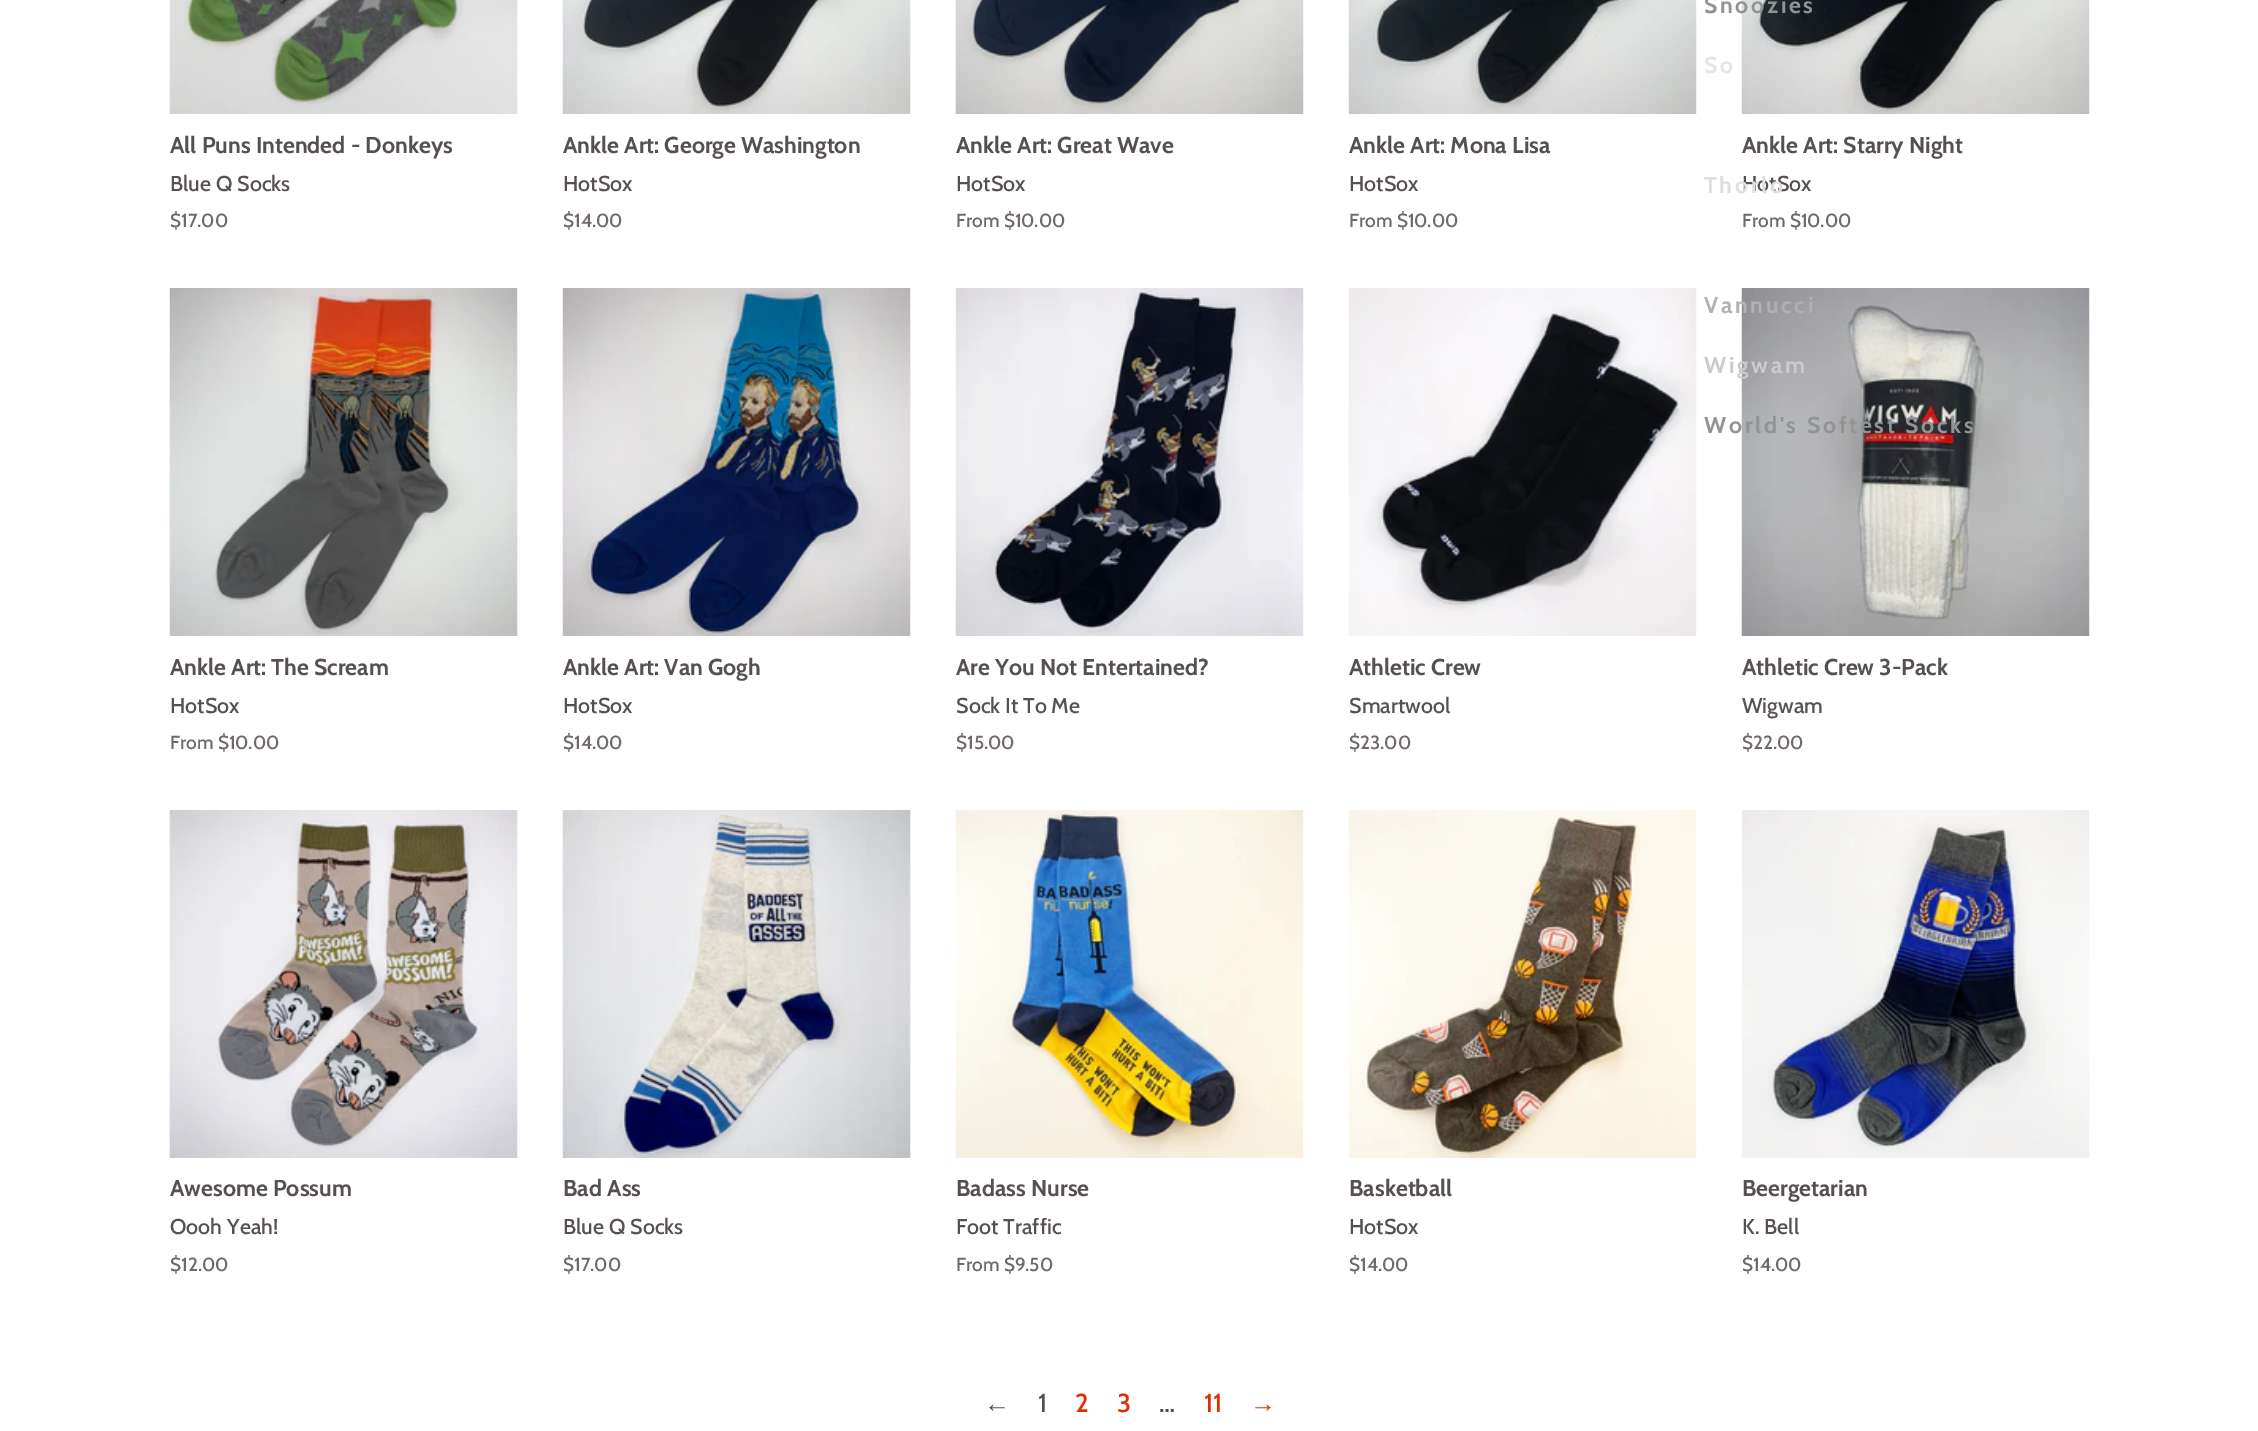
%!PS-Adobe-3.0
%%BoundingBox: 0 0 2258 1431
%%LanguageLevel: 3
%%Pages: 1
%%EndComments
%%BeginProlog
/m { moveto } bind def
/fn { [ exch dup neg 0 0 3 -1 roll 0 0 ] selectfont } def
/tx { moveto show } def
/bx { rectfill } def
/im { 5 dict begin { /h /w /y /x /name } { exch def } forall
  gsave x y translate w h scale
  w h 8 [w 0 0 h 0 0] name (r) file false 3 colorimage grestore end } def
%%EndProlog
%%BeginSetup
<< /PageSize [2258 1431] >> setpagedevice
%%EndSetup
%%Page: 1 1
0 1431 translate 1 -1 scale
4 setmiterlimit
1 setgray
0 0 2258 1431 bx
(image4.raw) 1741 0 349 114 im
/Cabin-Bold 23 fn
0.569 0.58 0.588 setrgbcolor
1704 13 m 2.7 0 (Snoozies) ashow
0.898 setgray
1704 73 m 2.7 0 (So) ashow
/Cabin-Medium 21.5 fn
0.337 0.314 0.314 setrgbcolor
(HotSox) 1742 191 tx
/Cabin-Bold 23 fn
0.878 0.875 0.875 setrgbcolor
1704 193 m 2.7 0 (Thorlo) ashow
(image9.raw) 1741 288 349 348 im
0.694 0.694 0.706 setrgbcolor
1704 313 m 2.7 0 (Vannucci) ashow
0.796 0.796 0.804 setrgbcolor
1704 373 m 2.7 0 (Wigwam) ashow
0.569 0.58 0.588 setrgbcolor
1704 433 m 2.7 0 (World's Softest Socks) ashow
(image0.raw) 169 0 349 114 im
0.337 0.314 0.314 setrgbcolor
(All Puns Intended - Donkeys) 170 153 tx
/Cabin-Medium 21.5 fn
(Blue Q Socks) 170 191 tx
/Cabin-Medium 19 fn
0.439 0.412 0.412 setrgbcolor
($17.00) 170 227 tx
(image1.raw) 562 0 349 114 im
/Cabin-Bold 23 fn
0.337 0.314 0.314 setrgbcolor
(Ankle Art: George Washington) 563 153 tx
/Cabin-Medium 21.5 fn
(HotSox) 563 191 tx
/Cabin-Medium 19 fn
0.439 0.412 0.412 setrgbcolor
($14.00) 563 227 tx
(image2.raw) 955 0 349 114 im
/Cabin-Bold 23 fn
0.337 0.314 0.314 setrgbcolor
(Ankle Art: Great Wave) 956 153 tx
/Cabin-Medium 21.5 fn
(HotSox) 956 191 tx
/Cabin-Medium 19 fn
0.439 0.412 0.412 setrgbcolor
(From $10.00) 956 227 tx
(image3.raw) 1348 0 349 114 im
/Cabin-Bold 23 fn
0.337 0.314 0.314 setrgbcolor
(Ankle Art: Mona Lisa) 1349 153 tx
/Cabin-Medium 21.5 fn
(HotSox) 1349 191 tx
/Cabin-Medium 19 fn
0.439 0.412 0.412 setrgbcolor
(From $10.00) 1349 227 tx
/Cabin-Bold 23 fn
0.337 0.314 0.314 setrgbcolor
(Ankle Art: Starry Night) 1742 153 tx
/Cabin-Medium 19 fn
0.439 0.412 0.412 setrgbcolor
(From $10.00) 1742 227 tx
(image5.raw) 169 288 349 348 im
/Cabin-Bold 23 fn
0.337 0.314 0.314 setrgbcolor
(Ankle Art: The Scream) 170 675 tx
/Cabin-Medium 21.5 fn
(HotSox) 170 713 tx
/Cabin-Medium 19 fn
0.439 0.412 0.412 setrgbcolor
(From $10.00) 170 749 tx
(image6.raw) 562 288 349 348 im
/Cabin-Bold 23 fn
0.337 0.314 0.314 setrgbcolor
(Ankle Art: Van Gogh) 563 675 tx
/Cabin-Medium 21.5 fn
(HotSox) 563 713 tx
/Cabin-Medium 19 fn
0.439 0.412 0.412 setrgbcolor
($14.00) 563 749 tx
(image7.raw) 955 288 349 348 im
/Cabin-Bold 23 fn
0.337 0.314 0.314 setrgbcolor
(Are You Not Entertained?) 956 675 tx
/Cabin-Medium 21.5 fn
(Sock It To Me) 956 713 tx
/Cabin-Medium 19 fn
0.439 0.412 0.412 setrgbcolor
($15.00) 956 749 tx
(image8.raw) 1348 288 349 348 im
/Cabin-Bold 23 fn
0.337 0.314 0.314 setrgbcolor
(Athletic Crew) 1349 675 tx
/Cabin-Medium 21.5 fn
(Smartwool) 1349 713 tx
/Cabin-Medium 19 fn
0.439 0.412 0.412 setrgbcolor
($23.00) 1349 749 tx
/Cabin-Bold 23 fn
0.337 0.314 0.314 setrgbcolor
(Athletic Crew 3-Pack) 1742 675 tx
/Cabin-Medium 21.5 fn
(Wigwam) 1742 713 tx
/Cabin-Medium 19 fn
0.439 0.412 0.412 setrgbcolor
($22.00) 1742 749 tx
(image10.raw) 169 810 349 348 im
/Cabin-Bold 23 fn
0.337 0.314 0.314 setrgbcolor
(Awesome Possum) 170 1196 tx
/Cabin-Medium 21.5 fn
(Oooh Yeah!) 170 1234 tx
/Cabin-Medium 19 fn
0.439 0.412 0.412 setrgbcolor
($12.00) 170 1271 tx
(image11.raw) 562 810 349 348 im
/Cabin-Bold 23 fn
0.337 0.314 0.314 setrgbcolor
(Bad Ass) 563 1196 tx
/Cabin-Medium 21.5 fn
(Blue Q Socks) 563 1234 tx
/Cabin-Medium 19 fn
0.439 0.412 0.412 setrgbcolor
($17.00) 563 1271 tx
(image12.raw) 955 810 349 348 im
/Cabin-Bold 23 fn
0.337 0.314 0.314 setrgbcolor
(Badass Nurse) 956 1196 tx
/Cabin-Medium 21.5 fn
(Foot Traffic) 956 1234 tx
/Cabin-Medium 19 fn
0.439 0.412 0.412 setrgbcolor
(From $9.50) 956 1271 tx
(image13.raw) 1348 810 349 348 im
/Cabin-Bold 23 fn
0.337 0.314 0.314 setrgbcolor
(Basketball) 1349 1196 tx
/Cabin-Medium 21.5 fn
(HotSox) 1349 1234 tx
/Cabin-Medium 19 fn
0.439 0.412 0.412 setrgbcolor
($14.00) 1349 1271 tx
(image14.raw) 1741 810 349 348 im
/Cabin-Bold 23 fn
0.337 0.314 0.314 setrgbcolor
(Beergetarian) 1742 1196 tx
/Cabin-Medium 21.5 fn
(K. Bell) 1742 1234 tx
/Cabin-Medium 19 fn
0.439 0.412 0.412 setrgbcolor
($14.00) 1742 1271 tx
/LiberationSans-Regular 26 fn
0.337 0.314 0.314 setrgbcolor
(←) 984 1412 tx
/Cabin-Medium 26 fn
(1) 1038 1412 tx
0.894 0.173 0 setrgbcolor
(2) 1075 1412 tx
(3) 1117 1412 tx
0.337 0.314 0.314 setrgbcolor
(…) 1159 1412 tx
0.894 0.173 0 setrgbcolor
(11) 1204 1412 tx
/LiberationSans-Regular 26 fn
(→) 1250 1412 tx
showpage
%%EOF
